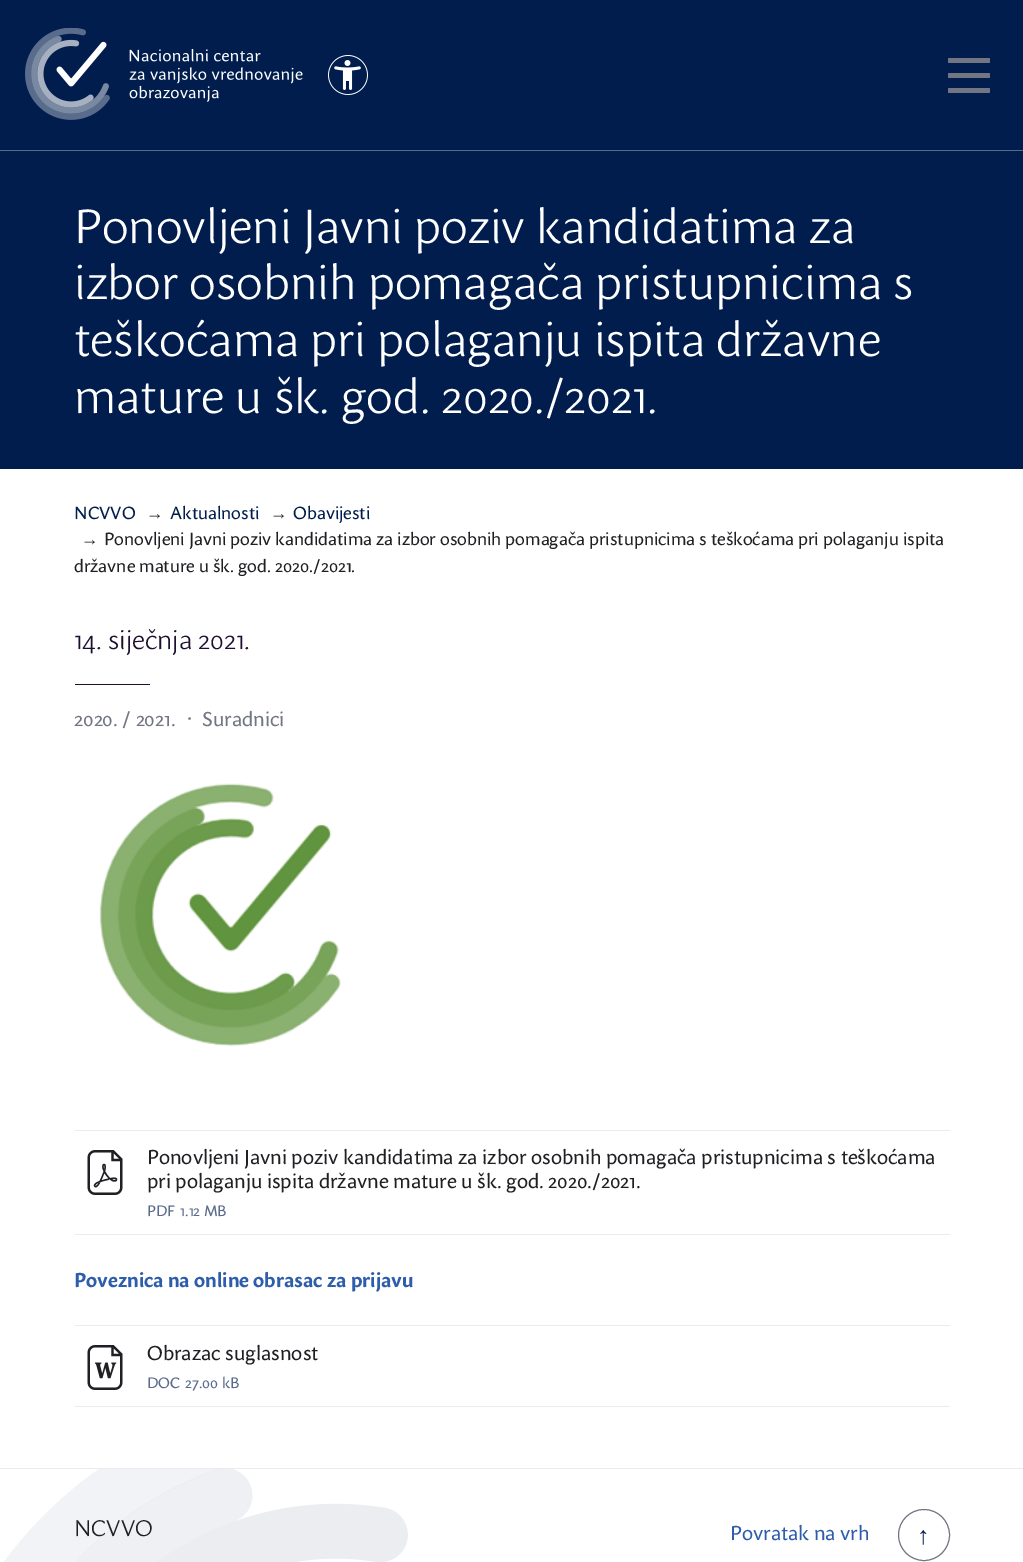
%!PS-Adobe-3.0
%%BoundingBox: 0 0 1023 1562
%%LanguageLevel: 3
%%Pages: 1
%%EndComments
%%BeginProlog
/f { fill } bind def
/S { stroke } bind def
/fn { [ exch dup neg 0 0 3 -1 roll 0 0 ] selectfont } def
/tx { moveto show } def
/bx { rectfill } def
/ci { newpath 0 360 arc closepath } def
/rr { 5 dict begin { /r /h /w /y /x } { exch def } forall
  x r add y moveto x w add y 2 copy h add r arct x w add y h add x 1 index r arct
  x y h add x y r arct x y 2 copy exch w add exch r arct closepath end } def
/im { 5 dict begin { /h /w /y /x /name } { exch def } forall
  gsave x y translate w h scale
  w h 8 [w 0 0 h 0 0] name (r) file false 3 colorimage grestore end } def
%%EndProlog
%%BeginSetup
<< /PageSize [1023 1562] >> setpagedevice
%%EndSetup
%%Page: 1 1
0 1562 translate 1 -1 scale
4 setmiterlimit
1 setgray
0 0 1023 1562 bx
0 0.114 0.302 setrgbcolor
0 0 1023 469 bx
0.349 0.42 0.549 setrgbcolor
0 150 1023 1 bx
(image0.raw) 25 28 278 92 im
(image1.raw) 328 55 40 40 im
0.447 0.463 0.51 setrgbcolor
948 73 42 5 1 rr f
948 58 42 5 1 rr f
948 88 42 5 1 rr f
/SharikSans-Light 47.5 fn
1 setgray
(Ponovljeni Javni poziv kandidatima za) 74 243 tx
(izbor osobnih pomagača pristupnicima s) 74 299 tx
(teškoćama pri polaganju ispita državne) 74 356 tx
(mature u šk. god. 2020./2021.) 74 413 tx
/SharikSans-Regular 17.5 fn
0 0.114 0.302 setrgbcolor
(NCVVO) 74 519 tx
/LiberationSans-Regular 17.5 fn
0.125 0.125 0.141 setrgbcolor
(→) 146 519 tx
/SharikSans-Regular 17.5 fn
0 0.114 0.302 setrgbcolor
(Aktualnosti) 170 519 tx
/LiberationSans-Regular 17.5 fn
0.125 0.125 0.141 setrgbcolor
(→) 270 519 tx
/SharikSans-Regular 17.5 fn
0 0.114 0.302 setrgbcolor
(Obavijesti) 293 519 tx
/LiberationSans-Regular 17.5 fn
0.125 0.125 0.141 setrgbcolor
(→) 81 545 tx
/SharikSans-Regular 17.5 fn
(Ponovljeni Javni poziv kandidatima za izbor osobnih pomagača pristupnicima s teškoćama pri polaganju ispita) 104 545 tx
(državne mature u šk. god. 2020./2021.) 74 572 tx
/SharikSans-Light 26.25 fn
0.118 0.055 0.184 setrgbcolor
(14. siječnja 2021.) 74 649 tx
75 684 75 1 bx
/SharikSans-Regular 20 fn
0.447 0.463 0.51 setrgbcolor
(2020. / 2021.) 74 726 tx
/SharikSans-Regular 22.5 fn
(·) 187 727 tx
/SharikSans-Regular 20 fn
(Suradnici) 202 726 tx
(image2.raw) 99 783 242 264 im
0.922 setgray
75 1130 875 1 bx
75 1234 875 1 bx
(image3.raw) 87 1150 36 45 im
0.125 0.125 0.141 setrgbcolor
(Ponovljeni Javni poziv kandidatima za izbor osobnih pomagača pristupnicima s teškoćama) 147 1164 tx
(pri polaganju ispita državne mature u šk. god. 2020./2021.) 147 1188 tx
/SharikSans-Regular 15 fn
0.349 0.42 0.549 setrgbcolor
(PDF) 147 1216 tx
(1.12 MB) 180 1216 tx
/SharikSans-Bold 20 fn
0.18 0.365 0.675 setrgbcolor
(Poveznica na online obrasac za prijavu) 74 1287 tx
0.922 setgray
75 1325 875 1 bx
75 1406 875 1 bx
(image4.raw) 87 1345 36 45 im
/SharikSans-Regular 20 fn
0.125 0.125 0.141 setrgbcolor
(Obrazac suglasnost) 147 1360 tx
/SharikSans-Regular 15 fn
0.349 0.42 0.549 setrgbcolor
(DOC) 147 1388 tx
(27.00 kB) 185 1388 tx
0.922 setgray
0 1468 1023 1 bx
(image5.raw) 4 1469 404 93 im
/SharikSans-Light 22.5 fn
0.125 0.125 0.141 setrgbcolor
(NCVVO) 74 1536 tx
/SharikSans-Regular 20 fn
0.18 0.365 0.675 setrgbcolor
(Povratak na vrh) 730 1540 tx
0.447 0.463 0.51 setrgbcolor
924 1535 25.5 ci S
/LiberationSans-Regular 25 fn
0 0.114 0.302 setrgbcolor
(↑) 917 1544 tx
showpage
%%EOF
